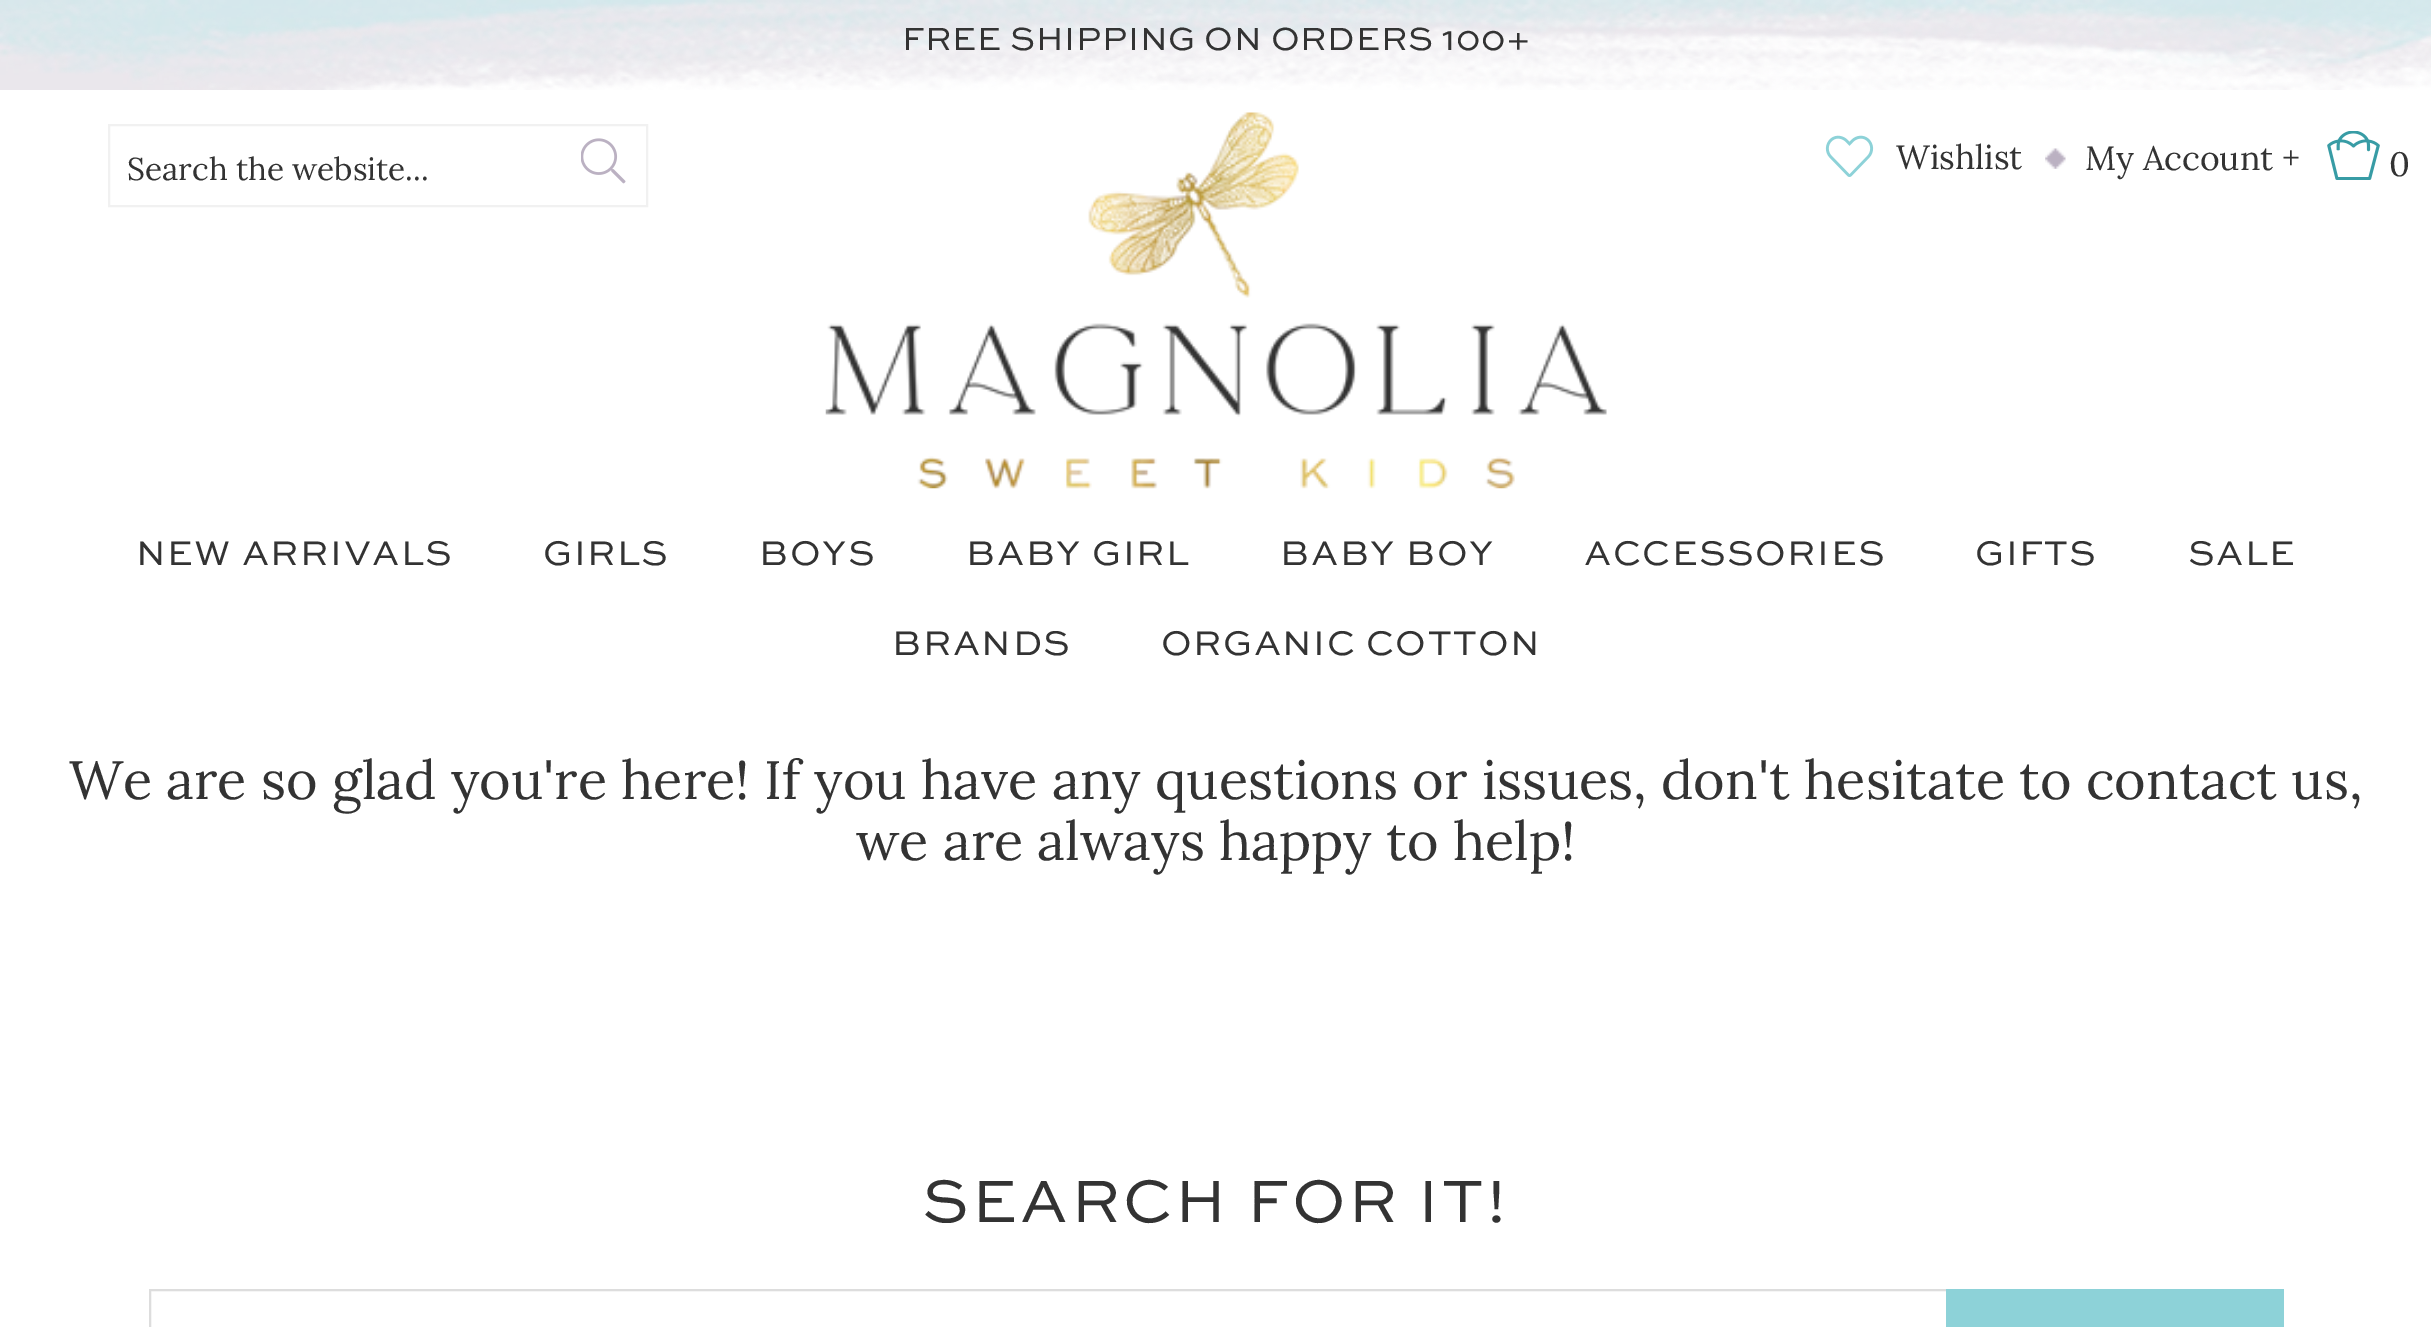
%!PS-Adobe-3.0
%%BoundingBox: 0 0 2431 1327
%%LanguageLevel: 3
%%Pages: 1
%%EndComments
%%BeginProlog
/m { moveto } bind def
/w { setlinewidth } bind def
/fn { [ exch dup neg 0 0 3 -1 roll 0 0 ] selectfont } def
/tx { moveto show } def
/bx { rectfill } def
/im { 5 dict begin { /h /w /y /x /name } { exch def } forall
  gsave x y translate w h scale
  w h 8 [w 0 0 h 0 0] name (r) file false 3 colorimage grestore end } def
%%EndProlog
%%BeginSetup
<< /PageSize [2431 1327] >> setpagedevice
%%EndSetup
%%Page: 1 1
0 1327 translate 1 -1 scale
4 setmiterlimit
1 setgray
0 0 2431 1327 bx
(image0.raw) 0 0 2431 90 im
/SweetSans-Regular 33.75 fn
0.2 setgray
902 50 m 0.7 0 (FREE SHIPPING ON ORDERS 100+) ashow
0.945 setgray
2 w
109 125 538 81 rectstroke
/Lora-Regular 31.5 fn
0.2 setgray
(Search the website...) 127 180 tx
(image1.raw) 581 138 45 46 im
(image2.raw) 825 112 782 377 im
(image3.raw) 1825 135 49 42 im
/Lora-Regular 33.75 fn
(Wishlist) 1896 169 tx
(image4.raw) 2045 148 21 21 im
(My Account +) 2085 170 tx
(image5.raw) 2327 131 53 49 im
(0) 2389 176 tx
/SweetSans-Regular 36 fn
136 565 m 1.5 0 (NEW ARRIVALS) ashow
543 565 m 1.5 0 (GIRLS) ashow
759 565 m 1.5 0 (BOYS) ashow
966 565 m 1.5 0 (BABY GIRL) ashow
1280 565 m 1.5 0 (BABY BOY) ashow
1584 565 m 1.5 0 (ACCESSORIES) ashow
1975 565 m 1.5 0 (GIFTS) ashow
2188 565 m 1.5 0 (SALE) ashow
892 655 m 1.5 0 (BRANDS) ashow
1161 655 m 1.5 0 (ORGANIC COTTON) ashow
/Lora-Regular 54 fn
(We are so glad you're here! If you have any questions or issues, don't hesitate to contact us,) 69 799 tx
(we are always happy to help!) 856 860 tx
/SweetSans-Regular 63 fn
922 1222 m 3.1 0 (SEARCH FOR IT!) ashow
0.867 setgray
150 1290 1798 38 rectstroke
0.553 0.824 0.847 setrgbcolor
1946 1289 338 38 bx
showpage
%%EOF
